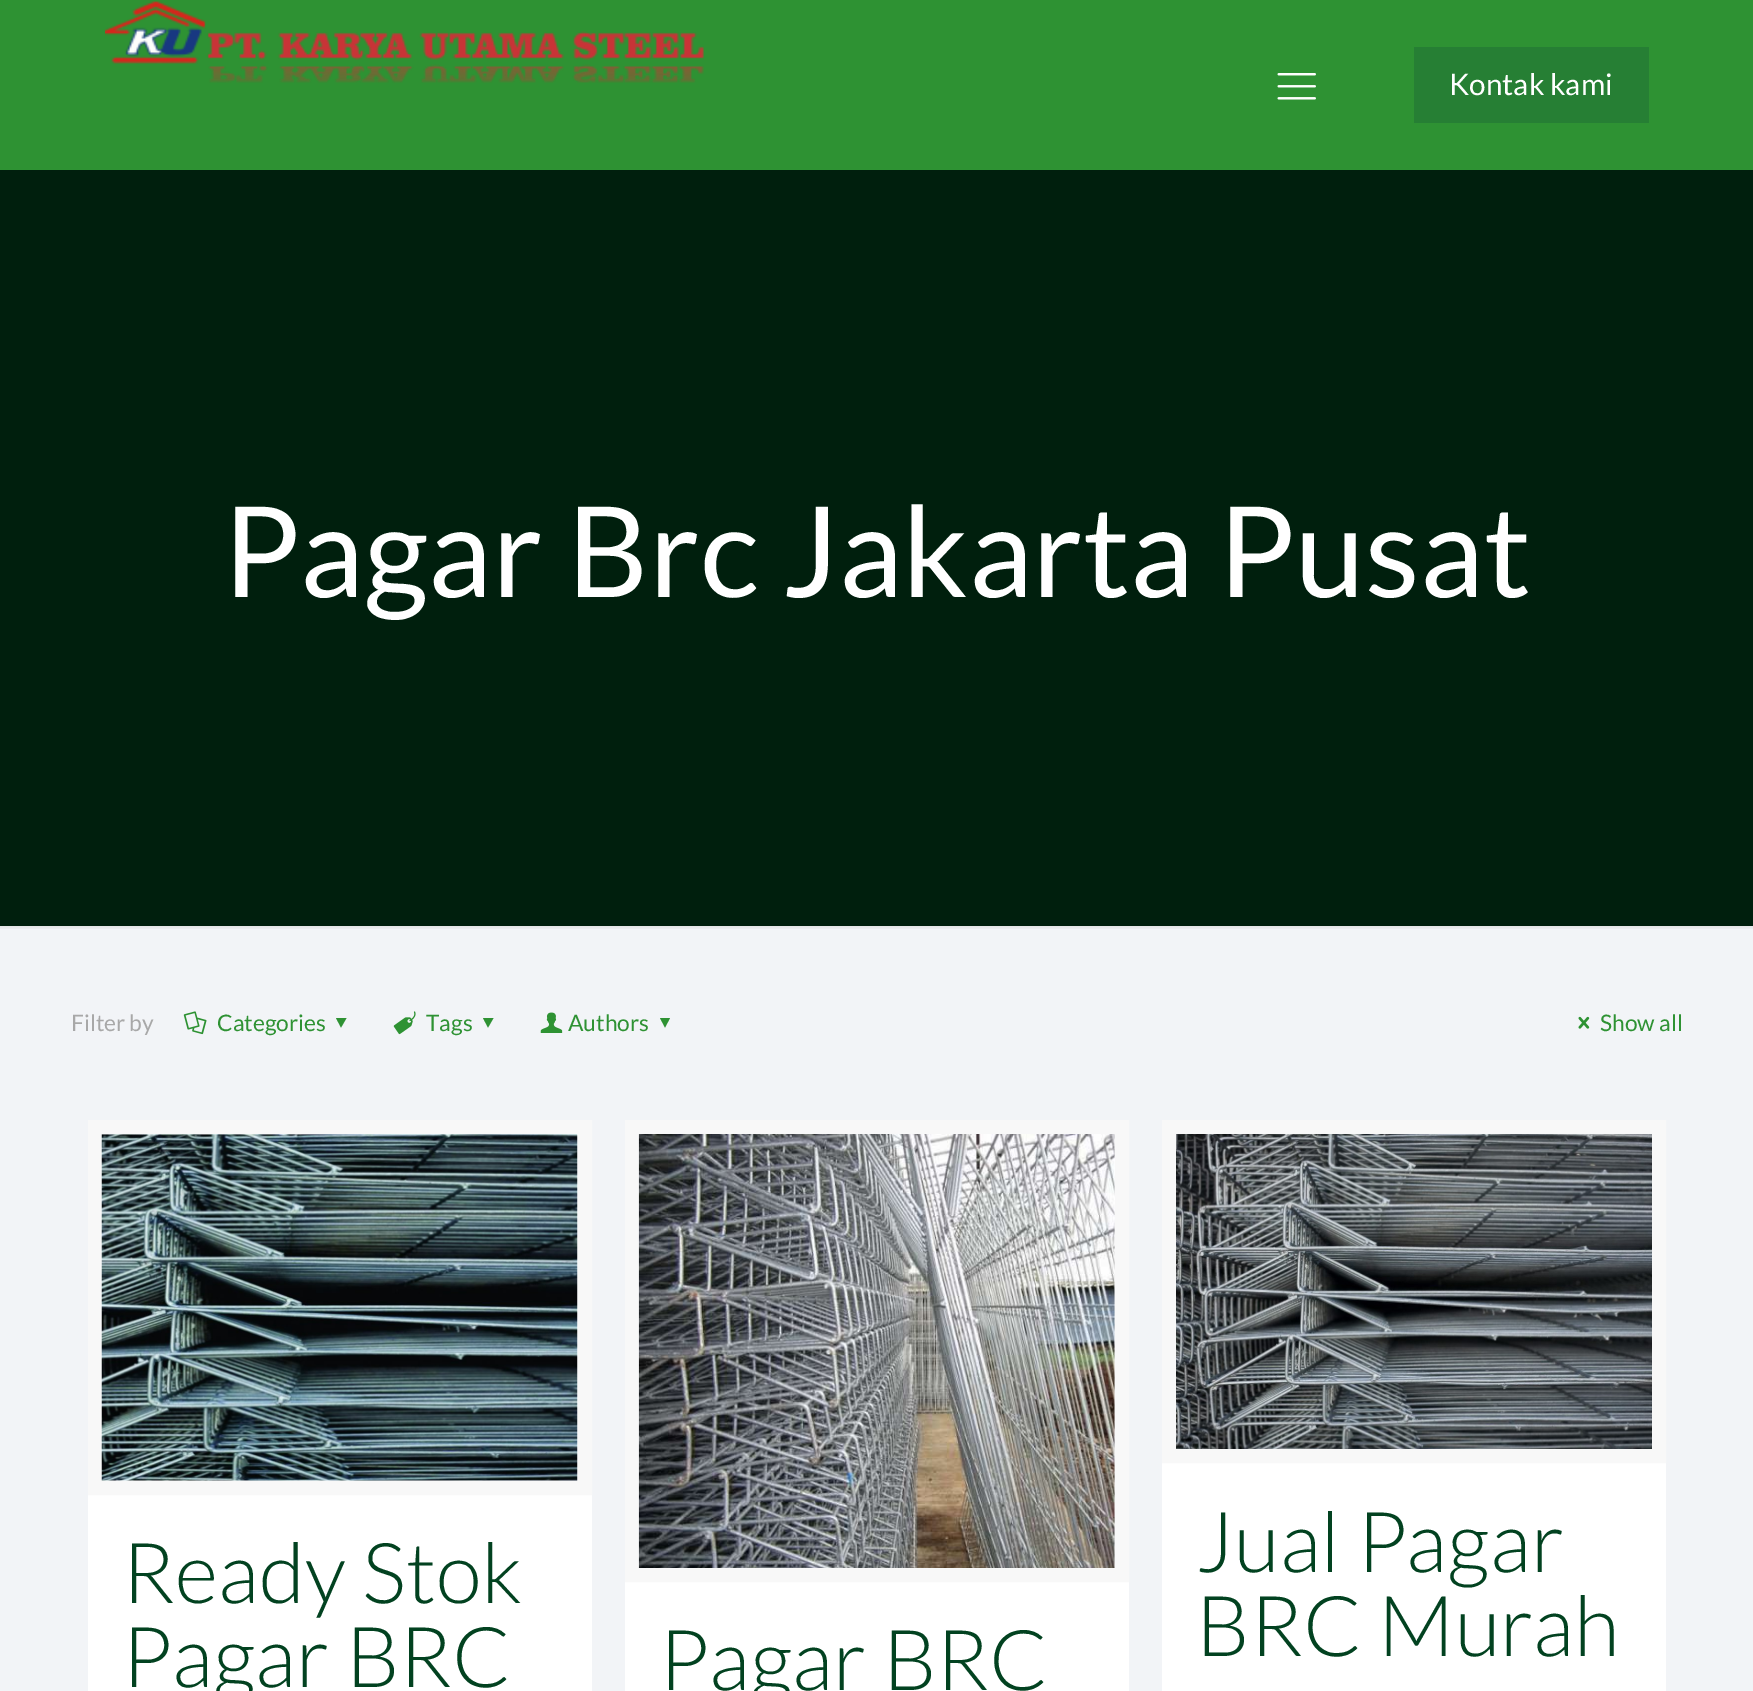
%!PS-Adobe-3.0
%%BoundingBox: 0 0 1753 1691
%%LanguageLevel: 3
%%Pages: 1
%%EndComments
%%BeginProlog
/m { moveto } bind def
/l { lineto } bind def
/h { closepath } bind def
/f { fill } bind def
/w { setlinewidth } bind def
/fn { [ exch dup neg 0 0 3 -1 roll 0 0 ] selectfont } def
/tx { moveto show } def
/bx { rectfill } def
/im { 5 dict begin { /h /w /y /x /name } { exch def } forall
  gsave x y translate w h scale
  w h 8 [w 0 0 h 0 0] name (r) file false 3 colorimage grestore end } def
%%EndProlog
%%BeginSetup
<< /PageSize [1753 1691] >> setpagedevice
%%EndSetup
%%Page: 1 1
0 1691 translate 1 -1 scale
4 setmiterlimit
0 0.122 0.051 setrgbcolor
0 0 1753 1691 bx
0.18 0.573 0.2 setrgbcolor
0 0 1753 170 bx
(image0.raw) 105 1 599 82 im
(image1.raw) 1277 73 39 27 im
0.149 0.498 0.204 setrgbcolor
1414 47 235 76 bx
/Lato-Regular 29.75 fn
1 setgray
(Kontak kami) 1449 95 tx
/Lato-Regular 126 fn
(Pagar Brc Jakarta Pusat) 223 597 tx
0.949 0.957 0.969 setrgbcolor
0 926 1753 765 bx
(image2.raw) 0 926 1753 3 im
/Lato-Regular 22.75 fn
0.659 setgray
(Filter by) 71 1031 tx
(image3.raw) 183 1011 24 24 im
0.18 0.573 0.2 setrgbcolor
(Categories) 217 1031 tx
346.5 1018 m 341 1027.5 l 336 1018 l h f
(image4.raw) 393 1011 23 24 im
(Tags) 426 1031 tx
493.5 1018 m 488 1027.5 l 483 1018 l h f
(image5.raw) 540 1012 23 21 im
(Authors) 568 1031 tx
670 1018 m 665 1027.5 l 660 1018 l h f
(image6.raw) 1578 1016 12 13 im
(Show all) 1600 1031 tx
1 setgray
88 1134 504 557 bx
0.973 setgray
14 w
95 1127 490 361 rectstroke
(image7.raw) 101 1134 477 347 im
/Lato-Light 84 fn
0.008 0.259 0.125 setrgbcolor
(Ready Stok) 122 1603 tx
(Pagar BRC) 122 1687 tx
1 setgray
625 1134 504 557 bx
0.973 setgray
632 1127 490 448 rectstroke
(image8.raw) 638 1134 477 434 im
0.008 0.259 0.125 setrgbcolor
(Pagar BRC) 659 1690 tx
1 setgray
1162 1463 504 228 bx
0.973 setgray
1169 1127 490 329 rectstroke
(image9.raw) 1176 1134 476 315 im
0.008 0.259 0.125 setrgbcolor
(Jual Pagar) 1196 1572 tx
(BRC Murah) 1196 1656 tx
showpage
%%EOF
